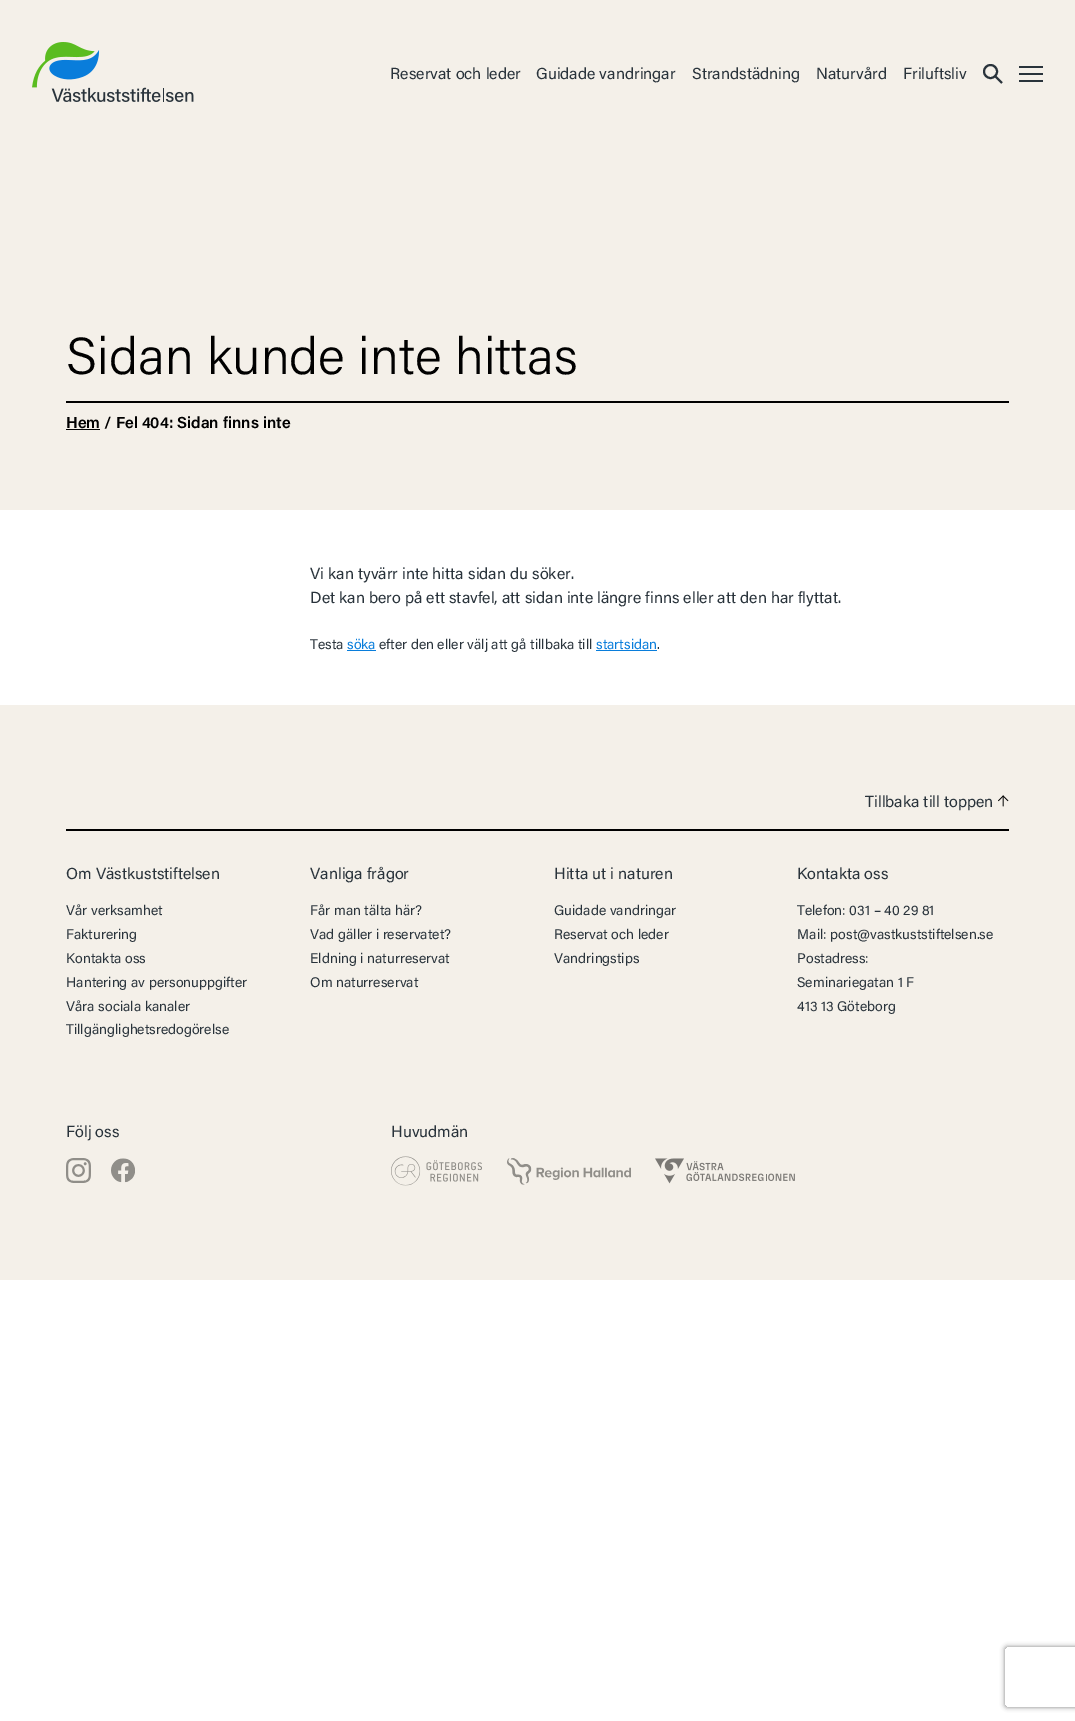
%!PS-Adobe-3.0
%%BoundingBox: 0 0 1075 1721
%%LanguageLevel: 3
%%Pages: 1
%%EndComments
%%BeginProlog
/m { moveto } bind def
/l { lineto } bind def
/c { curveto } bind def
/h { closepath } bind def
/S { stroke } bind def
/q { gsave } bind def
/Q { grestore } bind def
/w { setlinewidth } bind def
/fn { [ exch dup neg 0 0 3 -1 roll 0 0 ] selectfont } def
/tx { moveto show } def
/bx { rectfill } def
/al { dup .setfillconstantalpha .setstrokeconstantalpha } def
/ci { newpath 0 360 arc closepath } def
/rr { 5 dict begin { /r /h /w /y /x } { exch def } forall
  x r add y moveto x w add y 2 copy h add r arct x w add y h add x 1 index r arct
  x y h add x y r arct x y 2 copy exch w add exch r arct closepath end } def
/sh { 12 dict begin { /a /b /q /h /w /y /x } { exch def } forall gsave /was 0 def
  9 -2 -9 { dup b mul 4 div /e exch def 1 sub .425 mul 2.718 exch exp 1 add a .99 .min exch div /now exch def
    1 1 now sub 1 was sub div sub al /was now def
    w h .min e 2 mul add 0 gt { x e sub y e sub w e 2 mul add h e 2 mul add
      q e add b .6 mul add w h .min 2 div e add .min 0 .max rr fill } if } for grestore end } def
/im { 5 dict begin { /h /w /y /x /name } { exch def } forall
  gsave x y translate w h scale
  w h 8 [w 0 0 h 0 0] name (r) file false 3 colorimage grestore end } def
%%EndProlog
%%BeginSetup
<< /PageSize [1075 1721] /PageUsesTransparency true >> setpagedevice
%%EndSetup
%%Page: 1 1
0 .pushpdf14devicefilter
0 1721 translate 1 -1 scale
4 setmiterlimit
1 setgray
0 0 1075 1721 bx
0.957 0.941 0.914 setrgbcolor
0 0 1075 510 bx
(image0.raw) 32 42 162 60 im
/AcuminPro-Regular 16 fn
0.161 0.2 0.231 setrgbcolor
(Reservat och leder) 390 79 tx
(Guidade vandringar) 536 79 tx
(Strandstädning) 692 79 tx
(Naturvård) 816 79 tx
(Friluftsliv) 903 79 tx
2 w
990.5 71.5 6.5 ci S
1002 83 m 995 76 l S
(image1.raw) 1019 66 24 16 im
/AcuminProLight-Light 52 fn
0 setgray
(Sidan kunde inte hittas) 66 374 tx
66 401 943 2 bx
/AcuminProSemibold-SemiBold 16 fn
(Hem / Fel 404: Sidan finns inte) 66 428 tx
66 429 34 1 bx
/AcuminPro-Regular 16 fn
0.161 0.2 0.231 setrgbcolor
(Vi kan tyvärr inte hitta sidan du söker.) 310 579 tx
(Det kan bero på ett stavfel, att sidan inte längre finns eller att den har flyttat.) 310 603 tx
/AcuminPro-Regular 14 fn
(Testa) 310 649 tx
0.035 0.49 0.859 setrgbcolor
(söka) 347 649 tx
347 650 29 1 bx
0.161 0.2 0.231 setrgbcolor
(efter den eller välj att gå tillbaka till) 379 649 tx
0.035 0.49 0.859 setrgbcolor
(startsidan) 596 649 tx
596 650 61 1 bx
0.161 0.2 0.231 setrgbcolor
(.) 657 649 tx
0.957 0.941 0.914 setrgbcolor
0 705 1075 575 bx
0 setgray
66 829 943 2 bx
/AcuminPro-Regular 16 fn
0.161 0.2 0.231 setrgbcolor
(Tillbaka till toppen) 865 807 tx
(image2.raw) 998 795 11 12 im
(Om Västkuststiftelsen) 66 879 tx
/AcuminPro-Regular 14 fn
(Vår verksamhet) 66 915 tx
(Fakturering) 66 939 tx
(Kontakta oss) 66 963 tx
(Hantering av personuppgifter) 66 987 tx
(Våra sociala kanaler) 66 1011 tx
(Tillgänglighetsredogörelse) 66 1034 tx
/AcuminPro-Regular 16 fn
(Vanliga frågor) 310 879 tx
/AcuminPro-Regular 14 fn
(Får man tälta här?) 310 915 tx
(Vad gäller i reservatet?) 310 939 tx
(Eldning i naturreservat) 310 963 tx
(Om naturreservat) 310 987 tx
/AcuminPro-Regular 16 fn
(Hitta ut i naturen) 554 879 tx
/AcuminPro-Regular 14 fn
(Guidade vandringar) 554 915 tx
(Reservat och leder) 554 939 tx
(Vandringstips) 554 963 tx
/AcuminPro-Regular 16 fn
(Kontakta oss) 797 879 tx
/AcuminPro-Regular 14 fn
(Telefon: 031 – 40 29 81) 797 915 tx
(Mail: post@vastkuststiftelsen.se) 797 939 tx
(Postadress:) 797 963 tx
(Seminariegatan 1 F) 797 987 tx
(413 13 Göteborg) 797 1011 tx
/AcuminPro-Regular 16 fn
(Följ oss) 66 1137 tx
(image3.raw) 66 1158 25 25 im
(image4.raw) 111 1158 24 25 im
(Huvudmän) 391 1137 tx
(image5.raw) 391 1156 91 30 im
(image6.raw) 507 1158 124 27 im
(image7.raw) 655 1158 140 26 im
q
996 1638 m 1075 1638 l 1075 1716 l 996 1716 l h 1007 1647 m 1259 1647 l 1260 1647 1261 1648 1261 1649 c 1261 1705 l 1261 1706 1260 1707 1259 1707 c 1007 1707 l 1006 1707 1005 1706 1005 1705 c 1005 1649 l 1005 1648 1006 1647 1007 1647 c h eoclip newpath
0.502 setgray
1005 1647 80 60 2 2.5 1 sh
Q
.poppdf14devicefilter showpage
%%EOF
